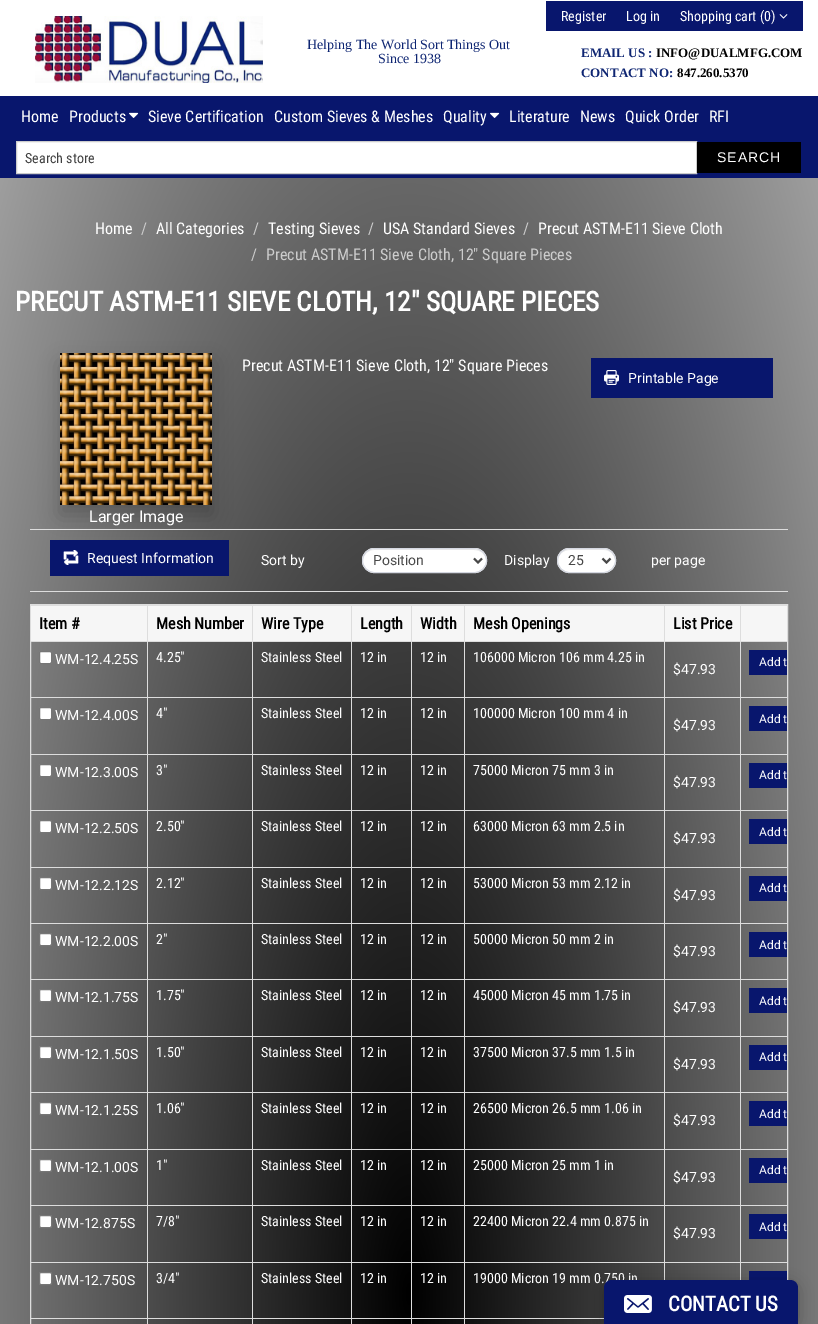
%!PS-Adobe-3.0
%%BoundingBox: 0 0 818 1324
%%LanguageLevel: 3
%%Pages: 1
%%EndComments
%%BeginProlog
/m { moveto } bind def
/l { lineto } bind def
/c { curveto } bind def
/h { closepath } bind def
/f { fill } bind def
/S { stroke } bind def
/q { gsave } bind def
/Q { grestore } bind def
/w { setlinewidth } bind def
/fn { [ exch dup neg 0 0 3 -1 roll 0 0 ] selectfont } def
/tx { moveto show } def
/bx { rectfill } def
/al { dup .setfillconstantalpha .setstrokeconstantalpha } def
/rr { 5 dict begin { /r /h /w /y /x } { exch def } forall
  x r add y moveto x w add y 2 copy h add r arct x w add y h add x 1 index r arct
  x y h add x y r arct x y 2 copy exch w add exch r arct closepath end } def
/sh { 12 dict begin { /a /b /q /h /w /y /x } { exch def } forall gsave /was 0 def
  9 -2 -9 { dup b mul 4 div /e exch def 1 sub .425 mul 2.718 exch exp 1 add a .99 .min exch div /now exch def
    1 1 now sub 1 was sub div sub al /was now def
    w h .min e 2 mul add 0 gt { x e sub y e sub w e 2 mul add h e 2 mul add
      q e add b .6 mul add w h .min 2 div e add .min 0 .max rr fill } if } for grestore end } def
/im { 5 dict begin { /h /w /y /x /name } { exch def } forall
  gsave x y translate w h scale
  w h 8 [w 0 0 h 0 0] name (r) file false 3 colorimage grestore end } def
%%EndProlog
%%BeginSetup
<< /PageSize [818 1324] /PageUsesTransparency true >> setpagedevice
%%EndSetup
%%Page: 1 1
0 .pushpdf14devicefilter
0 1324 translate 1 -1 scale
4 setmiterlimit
1 setgray
0 0 818 1324 bx
q 0 178 m 818 178 l 818 1324 l 0 1324 l h clip newpath 409 1294 translate 578 1830 scale
<< /ShadingType 3 /ColorSpace /DeviceRGB /Coords [0 0 0 0 0 1] /Extend [true true] /Function << /FunctionType 2 /Domain [0 1] /C0 [0 0 0] /C1 [0.663 0.663 0.663] /N 1 >> >> shfill Q
(image0.raw) 35 16 228 67 im
/LiberationSerif-Regular 14 fn
0.055 0.145 0.447 setrgbcolor
(Helping The World Sort Things Out) 307 49 tx
(Since 1938) 378 63 tx
0.031 0.086 0.427 setrgbcolor
546 1 257 30 bx
/RobotoCondensed-Regular 14 fn
1 setgray
(Register) 561 21 tx
(Log in) 626 21 tx
(Shopping cart \(0\)) 680 21 tx
(image1.raw) 779 14 9 5 im
/LiberationSerif-Bold 13 fn
0.055 0.145 0.447 setrgbcolor
(EMAIL US :) 581 57 tx
0 setgray
(INFO@DUALMFG.COM) 656 57 tx
0.055 0.145 0.447 setrgbcolor
(CONTACT NO:) 581 77 tx
0 setgray
(847.260.5370) 677 77 tx
0.031 0.086 0.427 setrgbcolor
0 96 818 82 bx
/RobotoCondensed-Regular 16 fn
1 setgray
(Home) 21 122 tx
(Products) 69 122 tx
(image2.raw) 129 112 10 6 im
(Sieve Certification) 148 122 tx
(Custom Sieves & Meshes) 274 122 tx
(Quality) 443 122 tx
(image2.raw) 490 112 10 6 im
(Literature) 509 122 tx
(News) 580 122 tx
(Quick Order) 625 122 tx
(RFI) 709 122 tx
16.5 141.5 m 696.5 141.5 l 696.5 173.5 l 16.5 173.5 l h q f Q
0.8 setgray
S
/RobotoCondensed-Regular 14 fn
0.251 setgray
(Search store) 25 163 tx
0 setgray
697 142 104 31 bx
/LiberationSans-Regular 14 fn
1 setgray
717 162 m 1 0 (SEARCH) ashow
/RobotoCondensed-Regular 16 fn
(Home) 95 234 tx
0.8 setgray
(/) 141 234 tx
1 setgray
(All Categories) 156 234 tx
0.8 setgray
(/) 253 234 tx
1 setgray
(Testing Sieves) 268 234 tx
0.8 setgray
(/) 368 234 tx
1 setgray
(USA Standard Sieves) 383 234 tx
0.8 setgray
(/) 523 234 tx
1 setgray
(Precut ASTM-E11 Sieve Cloth) 538 234 tx
0.8 setgray
(/) 251 260 tx
(Precut ASTM-E11 Sieve Cloth, 12" Square Pieces) 266 260 tx
/RobotoCondensed-Bold 27.2 fn
1 setgray
(PRECUT ASTM-E11 SIEVE CLOTH, 12" SQUARE PIECES) 15 311 tx
/RobotoCondensed-Regular 16 fn
(Precut ASTM-E11 Sieve Cloth, 12" Square Pieces) 242 371 tx
0.031 0.086 0.427 setrgbcolor
591 358 182 40 bx
(image3.raw) 604 370 15 15 im
/Roboto-Regular 14 fn
1 setgray
(Printable Page) 628 383 tx
0 setgray
60 363 152 152 0 10 0.2 sh
(image4.raw) 60 353 152 152 im
/Roboto-Regular 16 fn
1 setgray
(Larger Image) 89 522 tx
0.867 setgray
30 529 758 1 bx
30 591 758 1 bx
0.031 0.086 0.427 setrgbcolor
50 540 179 36 bx
(image5.raw) 63 550 16 15 im
/Roboto-Regular 14 fn
1 setgray
(Request Information) 87 563 tx
(Sort by) 261 565 tx
362 548 125 25 12.5 rr f
0.925 setgray
374 550 m 474 550 l 481 550 486 555 486 561 c 487 546 467 549 458 549 c 391 549 l 382 549 362 546 363 561 c 363 555 368 550 374 550 c h f
0.831 0.843 0.878 setrgbcolor
362.5 548.5 124 24 12 rr S
0.282 setgray
2 w
474 558.5 m 478 562.5 l 482 558.5 l S
(Position) 373 565 tx
1 setgray
(Display) 504 565 tx
557 548 59 25 12.5 rr f
0.925 setgray
570 550 m 604 550 l 610 550 615 555 615 561 c 616 546 596 549 586 549 c 577 549 557 546 558 561 c 558 555 563 550 570 550 c h f
0.831 0.843 0.878 setrgbcolor
1 w
557.5 548.5 58 24 12 rr S
0.282 setgray
2 w
602.5 558.5 m 606.5 562.5 l 610.5 558.5 l S
(25) 568 565 tx
1 setgray
(per page) 651 565 tx
0.867 setgray
1 w
30.5 604.5 757 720 rectstroke
0.965 setgray
31 606 116 35 bx
0.867 setgray
740 605 47 1 bx
740 641 47 1 bx
740 697 47 1 bx
740 754 47 1 bx
740 810 47 1 bx
740 867 47 1 bx
740 923 47 1 bx
740 979 47 1 bx
740 1036 47 1 bx
740 1092 47 1 bx
740 1149 47 1 bx
740 1205 47 1 bx
740 1262 47 1 bx
740 1262 1 18 bx
664 1262 77 1 bx
740 1205 1 58 bx
664 1205 77 1 bx
740 1149 1 57 bx
664 1149 77 1 bx
740 1092 1 58 bx
664 1092 77 1 bx
740 1036 1 57 bx
664 1036 77 1 bx
740 979 1 58 bx
664 979 77 1 bx
740 923 1 57 bx
664 923 77 1 bx
740 867 1 57 bx
664 867 77 1 bx
740 810 1 58 bx
664 810 77 1 bx
740 754 1 57 bx
664 754 77 1 bx
740 697 1 58 bx
664 697 77 1 bx
740 641 1 57 bx
664 641 77 1 bx
740 605 1 37 bx
664 605 77 1 bx
664 1262 1 18 bx
464 1262 201 1 bx
664 1205 1 58 bx
464 1205 201 1 bx
664 1149 1 57 bx
464 1149 201 1 bx
664 1092 1 58 bx
464 1092 201 1 bx
664 1036 1 57 bx
464 1036 201 1 bx
664 979 1 58 bx
464 979 201 1 bx
664 923 1 57 bx
464 923 201 1 bx
664 867 1 57 bx
464 867 201 1 bx
664 810 1 58 bx
464 810 201 1 bx
664 754 1 57 bx
464 754 201 1 bx
664 697 1 58 bx
464 697 201 1 bx
664 641 1 57 bx
464 641 201 1 bx
664 605 1 37 bx
464 605 201 1 bx
464 1318 140 1 bx
464 1318 1 6 bx
411 1318 54 1 bx
464 1262 1 57 bx
411 1262 54 1 bx
464 1205 1 58 bx
411 1205 54 1 bx
464 1149 1 57 bx
411 1149 54 1 bx
464 1092 1 58 bx
411 1092 54 1 bx
464 1036 1 57 bx
411 1036 54 1 bx
464 979 1 58 bx
411 979 54 1 bx
464 923 1 57 bx
411 923 54 1 bx
464 867 1 57 bx
411 867 54 1 bx
464 810 1 58 bx
411 810 54 1 bx
464 754 1 57 bx
411 754 54 1 bx
464 697 1 58 bx
411 697 54 1 bx
464 641 1 57 bx
411 641 54 1 bx
464 605 1 37 bx
411 605 54 1 bx
411 1318 1 6 bx
351 1318 61 1 bx
411 1262 1 57 bx
351 1262 61 1 bx
411 1205 1 58 bx
351 1205 61 1 bx
411 1149 1 57 bx
351 1149 61 1 bx
411 1092 1 58 bx
351 1092 61 1 bx
411 1036 1 57 bx
351 1036 61 1 bx
411 979 1 58 bx
351 979 61 1 bx
411 923 1 57 bx
351 923 61 1 bx
411 867 1 57 bx
351 867 61 1 bx
411 810 1 58 bx
351 810 61 1 bx
411 754 1 57 bx
351 754 61 1 bx
411 697 1 58 bx
351 697 61 1 bx
411 641 1 57 bx
351 641 61 1 bx
411 605 1 37 bx
351 605 61 1 bx
351 1318 1 6 bx
252 1318 100 1 bx
351 1262 1 57 bx
252 1262 100 1 bx
351 1205 1 58 bx
252 1205 100 1 bx
351 1149 1 57 bx
252 1149 100 1 bx
351 1092 1 58 bx
252 1092 100 1 bx
351 1036 1 57 bx
252 1036 100 1 bx
351 979 1 58 bx
252 979 100 1 bx
351 923 1 57 bx
252 923 100 1 bx
351 867 1 57 bx
252 867 100 1 bx
351 810 1 58 bx
252 810 100 1 bx
351 754 1 57 bx
252 754 100 1 bx
351 697 1 58 bx
252 697 100 1 bx
351 641 1 57 bx
252 641 100 1 bx
351 605 1 37 bx
252 605 100 1 bx
252 1318 1 6 bx
147 1318 106 1 bx
252 1262 1 57 bx
147 1262 106 1 bx
252 1205 1 58 bx
147 1205 106 1 bx
252 1149 1 57 bx
147 1149 106 1 bx
252 1092 1 58 bx
147 1092 106 1 bx
252 1036 1 57 bx
147 1036 106 1 bx
252 979 1 58 bx
147 979 106 1 bx
252 923 1 57 bx
147 923 106 1 bx
252 867 1 57 bx
147 867 106 1 bx
252 810 1 58 bx
147 810 106 1 bx
252 754 1 57 bx
147 754 106 1 bx
252 697 1 58 bx
147 697 106 1 bx
252 641 1 57 bx
147 641 106 1 bx
252 605 1 37 bx
147 605 106 1 bx
147 1318 1 6 bx
31 1318 117 1 bx
147 1262 1 57 bx
31 1262 117 1 bx
147 1205 1 58 bx
31 1205 117 1 bx
147 1149 1 57 bx
31 1149 117 1 bx
147 1092 1 58 bx
31 1092 117 1 bx
147 1036 1 57 bx
31 1036 117 1 bx
147 979 1 58 bx
31 979 117 1 bx
147 923 1 57 bx
31 923 117 1 bx
147 867 1 57 bx
31 867 117 1 bx
147 810 1 58 bx
31 810 117 1 bx
147 754 1 57 bx
31 754 117 1 bx
147 697 1 58 bx
31 697 117 1 bx
147 641 1 57 bx
31 641 117 1 bx
147 605 1 37 bx
31 605 117 1 bx
/RobotoCondensed-Bold 16 fn
0 setgray
(Item #) 39 629 tx
0.965 setgray
148 606 104 35 bx
0 setgray
(Mesh Number) 156 629 tx
0.965 setgray
253 606 98 35 bx
0 setgray
(Wire Type) 261 629 tx
0.965 setgray
352 606 59 35 bx
0 setgray
(Length) 360 629 tx
0.965 setgray
412 606 52 35 bx
0 setgray
(Width) 420 629 tx
0.965 setgray
465 606 199 35 bx
0 setgray
(Mesh Openings) 473 629 tx
0.965 setgray
665 606 75 35 bx
0 setgray
(List Price) 673 629 tx
0.965 setgray
741 606 46 35 bx
1 setgray
39.5 651.5 12 12 1.5 rr q f Q
0.463 setgray
S
/Roboto-Regular 14 fn
1 setgray
(WM-12.4.25S) 55 664 tx
/RobotoCondensed-Regular 14 fn
(4.25") 156 662 tx
(Stainless Steel) 261 662 tx
(12 in) 360 662 tx
(12 in) 420 662 tx
(106000 Micron 106 mm 4.25 in) 473 662 tx
/Roboto-Regular 14 fn
($47.93) 673 674 tx
0.031 0.086 0.427 setrgbcolor
749 650 38 25 bx
q
749 650 38 25 rectclip
/Roboto-Regular 12 fn
1 setgray
(Add t) 759 666 tx
Q
1 setgray
39.5 707.5 12 12 1.5 rr q f Q
0.463 setgray
S
1 setgray
(WM-12.4.00S) 55 720 tx
/RobotoCondensed-Regular 14 fn
(4") 156 718 tx
(Stainless Steel) 261 718 tx
(12 in) 360 718 tx
(12 in) 420 718 tx
(100000 Micron 100 mm 4 in) 473 718 tx
/Roboto-Regular 14 fn
($47.93) 673 730 tx
0.031 0.086 0.427 setrgbcolor
749 706 38 25 bx
q
749 706 38 25 rectclip
/Roboto-Regular 12 fn
1 setgray
(Add t) 759 723 tx
Q
1 setgray
39.5 764.5 12 12 1.5 rr q f Q
0.463 setgray
S
1 setgray
(WM-12.3.00S) 55 777 tx
/RobotoCondensed-Regular 14 fn
(3") 156 775 tx
(Stainless Steel) 261 775 tx
(12 in) 360 775 tx
(12 in) 420 775 tx
(75000 Micron 75 mm 3 in) 473 775 tx
/Roboto-Regular 14 fn
($47.93) 673 787 tx
0.031 0.086 0.427 setrgbcolor
749 763 38 25 bx
q
749 763 38 25 rectclip
/Roboto-Regular 12 fn
1 setgray
(Add t) 759 779 tx
Q
1 setgray
39.5 820.5 12 12 1.5 rr q f Q
0.463 setgray
S
1 setgray
(WM-12.2.50S) 55 833 tx
/RobotoCondensed-Regular 14 fn
(2.50") 156 831 tx
(Stainless Steel) 261 831 tx
(12 in) 360 831 tx
(12 in) 420 831 tx
(63000 Micron 63 mm 2.5 in) 473 831 tx
/Roboto-Regular 14 fn
($47.93) 673 843 tx
0.031 0.086 0.427 setrgbcolor
749 819 38 25 bx
q
749 819 38 25 rectclip
/Roboto-Regular 12 fn
1 setgray
(Add t) 759 836 tx
Q
1 setgray
39.5 877.5 12 12 1.5 rr q f Q
0.463 setgray
S
1 setgray
(WM-12.2.12S) 55 890 tx
/RobotoCondensed-Regular 14 fn
(2.12") 156 888 tx
(Stainless Steel) 261 888 tx
(12 in) 360 888 tx
(12 in) 420 888 tx
(53000 Micron 53 mm 2.12 in) 473 888 tx
/Roboto-Regular 14 fn
($47.93) 673 900 tx
0.031 0.086 0.427 setrgbcolor
749 876 38 25 bx
q
749 876 38 25 rectclip
/Roboto-Regular 12 fn
1 setgray
(Add t) 759 892 tx
Q
1 setgray
39.5 933.5 12 12 1.5 rr q f Q
0.463 setgray
S
1 setgray
(WM-12.2.00S) 55 946 tx
/RobotoCondensed-Regular 14 fn
(2") 156 944 tx
(Stainless Steel) 261 944 tx
(12 in) 360 944 tx
(12 in) 420 944 tx
(50000 Micron 50 mm 2 in) 473 944 tx
/Roboto-Regular 14 fn
($47.93) 673 956 tx
0.031 0.086 0.427 setrgbcolor
749 932 38 25 bx
q
749 932 38 25 rectclip
/Roboto-Regular 12 fn
1 setgray
(Add t) 759 949 tx
Q
1 setgray
39.5 989.5 12 12 1.5 rr q f Q
0.463 setgray
S
1 setgray
(WM-12.1.75S) 55 1002 tx
/RobotoCondensed-Regular 14 fn
(1.75") 156 1000 tx
(Stainless Steel) 261 1000 tx
(12 in) 360 1000 tx
(12 in) 420 1000 tx
(45000 Micron 45 mm 1.75 in) 473 1000 tx
/Roboto-Regular 14 fn
($47.93) 673 1012 tx
0.031 0.086 0.427 setrgbcolor
749 988 38 25 bx
q
749 988 38 25 rectclip
/Roboto-Regular 12 fn
1 setgray
(Add t) 759 1005 tx
Q
1 setgray
39.5 1046.5 12 12 1.5 rr q f Q
0.463 setgray
S
1 setgray
(WM-12.1.50S) 55 1059 tx
/RobotoCondensed-Regular 14 fn
(1.50") 156 1057 tx
(Stainless Steel) 261 1057 tx
(12 in) 360 1057 tx
(12 in) 420 1057 tx
(37500 Micron 37.5 mm 1.5 in) 473 1057 tx
/Roboto-Regular 14 fn
($47.93) 673 1069 tx
0.031 0.086 0.427 setrgbcolor
749 1045 38 25 bx
q
749 1045 38 25 rectclip
/Roboto-Regular 12 fn
1 setgray
(Add t) 759 1061 tx
Q
1 setgray
39.5 1102.5 12 12 1.5 rr q f Q
0.463 setgray
S
1 setgray
(WM-12.1.25S) 55 1115 tx
/RobotoCondensed-Regular 14 fn
(1.06") 156 1113 tx
(Stainless Steel) 261 1113 tx
(12 in) 360 1113 tx
(12 in) 420 1113 tx
(26500 Micron 26.5 mm 1.06 in) 473 1113 tx
/Roboto-Regular 14 fn
($47.93) 673 1125 tx
0.031 0.086 0.427 setrgbcolor
749 1101 38 25 bx
q
749 1101 38 25 rectclip
/Roboto-Regular 12 fn
1 setgray
(Add t) 759 1118 tx
Q
1 setgray
39.5 1159.5 12 12 1.5 rr q f Q
0.463 setgray
S
1 setgray
(WM-12.1.00S) 55 1172 tx
/RobotoCondensed-Regular 14 fn
(1") 156 1170 tx
(Stainless Steel) 261 1170 tx
(12 in) 360 1170 tx
(12 in) 420 1170 tx
(25000 Micron 25 mm 1 in) 473 1170 tx
/Roboto-Regular 14 fn
($47.93) 673 1182 tx
0.031 0.086 0.427 setrgbcolor
749 1158 38 25 bx
q
749 1158 38 25 rectclip
/Roboto-Regular 12 fn
1 setgray
(Add t) 759 1174 tx
Q
1 setgray
39.5 1215.5 12 12 1.5 rr q f Q
0.463 setgray
S
1 setgray
(WM-12.875S) 55 1228 tx
/RobotoCondensed-Regular 14 fn
(7/8") 156 1226 tx
(Stainless Steel) 261 1226 tx
(12 in) 360 1226 tx
(12 in) 420 1226 tx
(22400 Micron 22.4 mm 0.875 in) 473 1226 tx
/Roboto-Regular 14 fn
($47.93) 673 1238 tx
0.031 0.086 0.427 setrgbcolor
749 1214 38 25 bx
q
749 1214 38 25 rectclip
/Roboto-Regular 12 fn
1 setgray
(Add t) 759 1231 tx
Q
1 setgray
39.5 1272.5 12 12 1.5 rr q f Q
0.463 setgray
S
1 setgray
(WM-12.750S) 55 1285 tx
/RobotoCondensed-Regular 14 fn
(3/4") 156 1283 tx
(Stainless Steel) 261 1283 tx
(12 in) 360 1283 tx
(12 in) 420 1283 tx
(19000 Micron 19 mm 0.750 in) 473 1283 tx
0.031 0.086 0.427 setrgbcolor
749 1271 38 9 bx
0 setgray
604 1283 194 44 8 7.5 0.25 sh
0.031 0.086 0.427 setrgbcolor
612 1280 m 790 1280 l 794.5 1280 798 1283.5 798 1288 c 798 1324 l 604 1324 l 604 1288 l 604 1283.5 607.5 1280 612 1280 c h f
(image6.raw) 624 1295 28 18 im
/RobotoCondensed-Bold 20.75 fn
1 setgray
(CONTACT US) 668 1311 tx
.poppdf14devicefilter showpage
%%EOF
